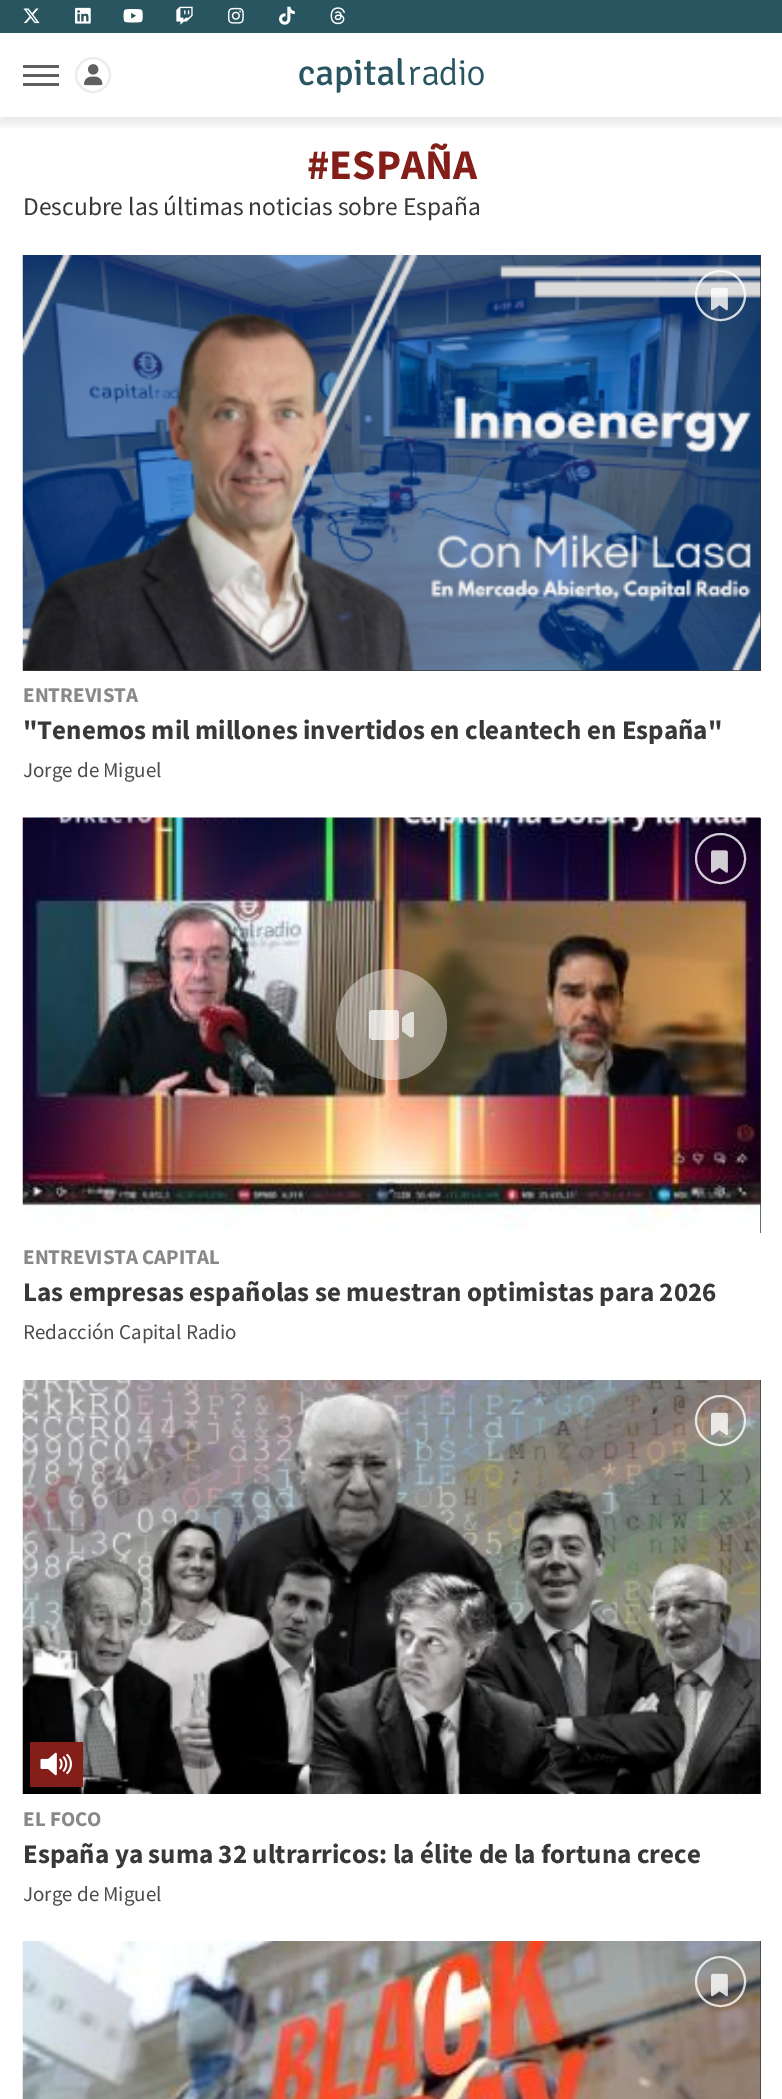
%!PS-Adobe-3.0
%%BoundingBox: 0 0 782 2099
%%LanguageLevel: 3
%%Pages: 1
%%EndComments
%%BeginProlog
/m { moveto } bind def
/l { lineto } bind def
/c { curveto } bind def
/h { closepath } bind def
/f { fill } bind def
/S { stroke } bind def
/q { gsave } bind def
/Q { grestore } bind def
/w { setlinewidth } bind def
/fn { [ exch dup neg 0 0 3 -1 roll 0 0 ] selectfont } def
/tx { moveto show } def
/bx { rectfill } def
/al { dup .setfillconstantalpha .setstrokeconstantalpha } def
/ci { newpath 0 360 arc closepath } def
/rr { 5 dict begin { /r /h /w /y /x } { exch def } forall
  x r add y moveto x w add y 2 copy h add r arct x w add y h add x 1 index r arct
  x y h add x y r arct x y 2 copy exch w add exch r arct closepath end } def
/sh { 12 dict begin { /a /b /q /h /w /y /x } { exch def } forall gsave /was 0 def
  9 -2 -9 { dup b mul 4 div /e exch def 1 sub .425 mul 2.718 exch exp 1 add a .99 .min exch div /now exch def
    1 1 now sub 1 was sub div sub al /was now def
    w h .min e 2 mul add 0 gt { x e sub y e sub w e 2 mul add h e 2 mul add
      q e add b .6 mul add w h .min 2 div e add .min 0 .max rr fill } if } for grestore end } def
/im { 5 dict begin { /h /w /y /x /name } { exch def } forall
  gsave x y translate w h scale
  w h 8 [w 0 0 h 0 0] name (r) file false 3 colorimage grestore end } def
%%EndProlog
%%BeginSetup
<< /PageSize [782 2099] /PageUsesTransparency true >> setpagedevice
%%EndSetup
%%Page: 1 1
0 .pushpdf14devicefilter
0 2099 translate 1 -1 scale
4 setmiterlimit
1 setgray
0 0 782 2099 bx
q
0 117 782 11 rectclip
0 setgray
0 6 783 117 0 6 0.1 sh
Q
0.157 0.333 0.376 setrgbcolor
0 0 782 33 bx
(image0.raw) 23 8 17 16 im
(image1.raw) 75 7 16 17 im
(image2.raw) 123 9 20 14 im
(image3.raw) 176 6 17 19 im
(image4.raw) 228 7 16 17 im
(image5.raw) 279 6 16 19 im
(image6.raw) 330 7 15 18 im
0.922 setgray
2 w
93 75 17 ci S
(image7.raw) 84 64 19 22 im
(image8.raw) 299 58 185 35 im
0.376 setgray
23 65 36 3 bx
23 74 36 3 bx
23 83 36 3 bx
/SourceSansPro-Bold 42 fn
0.514 0.118 0.094 setrgbcolor
(#ESPAÑA) 307 179 tx
/SourceSansPro-Regular 25.5 fn
0.22 setgray
(Descubre las últimas noticias sobre España) 23 215 tx
23 255 738 416 bx
(image9.raw) 22 255 739 416 im
0.8 al
1 setgray
720.5 295.5 24.5 ci S
1 al
(image10.raw) 711 287 17 24 im
/SourceSansPro-Bold 21 fn
0.533 setgray
(ENTREVISTA) 23 702 tx
/SourceSansPro-Bold 27 fn
0.22 setgray
("Tenemos mil millones invertidos en cleantech en España") 23 739 tx
/SourceSansPro-Regular 21 fn
0.298 setgray
(Jorge de Miguel) 23 777 tx
0.22 setgray
760 818 1 415 bx
(image11.raw) 22 817 739 416 im
0.8 al
1 setgray
720.5 858.5 24.5 ci S
1 al
(image12.raw) 711 850 17 23 im
0.4 al
391.5 1024.5 55.5 ci f
0.7 al
399 1013 m 399 1036 l 399 1038 397 1040 395 1040 c 373 1040 l 371 1040 369 1038 369 1036 c 369 1013 l 369 1011 371 1010 373 1010 c 395 1010 l 397 1010 399 1011 399 1013 c h 414 1014 m 414 1035 l 414 1037 412 1038 410 1037 c 402 1031 l 402 1018 l 403 1017 414 1008 414 1014 c h f
/SourceSansPro-Bold 21 fn
1 al
0.533 setgray
(ENTREVISTA CAPITAL) 23 1264 tx
/SourceSansPro-Bold 27 fn
0.22 setgray
(Las empresas españolas se muestran optimistas para 2026) 23 1301 tx
/SourceSansPro-Regular 21 fn
0.298 setgray
(Redacción Capital Radio) 23 1339 tx
0.22 setgray
760 1380 1 414 bx
(image13.raw) 22 1380 739 414 im
0.8 al
1 setgray
720.5 1420.5 24.5 ci S
1 al
(image14.raw) 711 1412 17 24 im
(image15.raw) 30 1742 53 45 im
/SourceSansPro-Bold 21 fn
0.533 setgray
(EL FOCO) 23 1826 tx
/SourceSansPro-Bold 27 fn
0.22 setgray
(España ya suma 32 ultrarricos: la élite de la fortuna crece) 23 1863 tx
/SourceSansPro-Regular 21 fn
0.298 setgray
(Jorge de Miguel) 23 1901 tx
0.22 setgray
760 1941 1 158 bx
(image16.raw) 22 1941 739 158 im
0.8 al
1 setgray
720.5 1981.5 24.5 ci S
1 al
(image17.raw) 711 1973 17 24 im
.poppdf14devicefilter showpage
%%EOF
